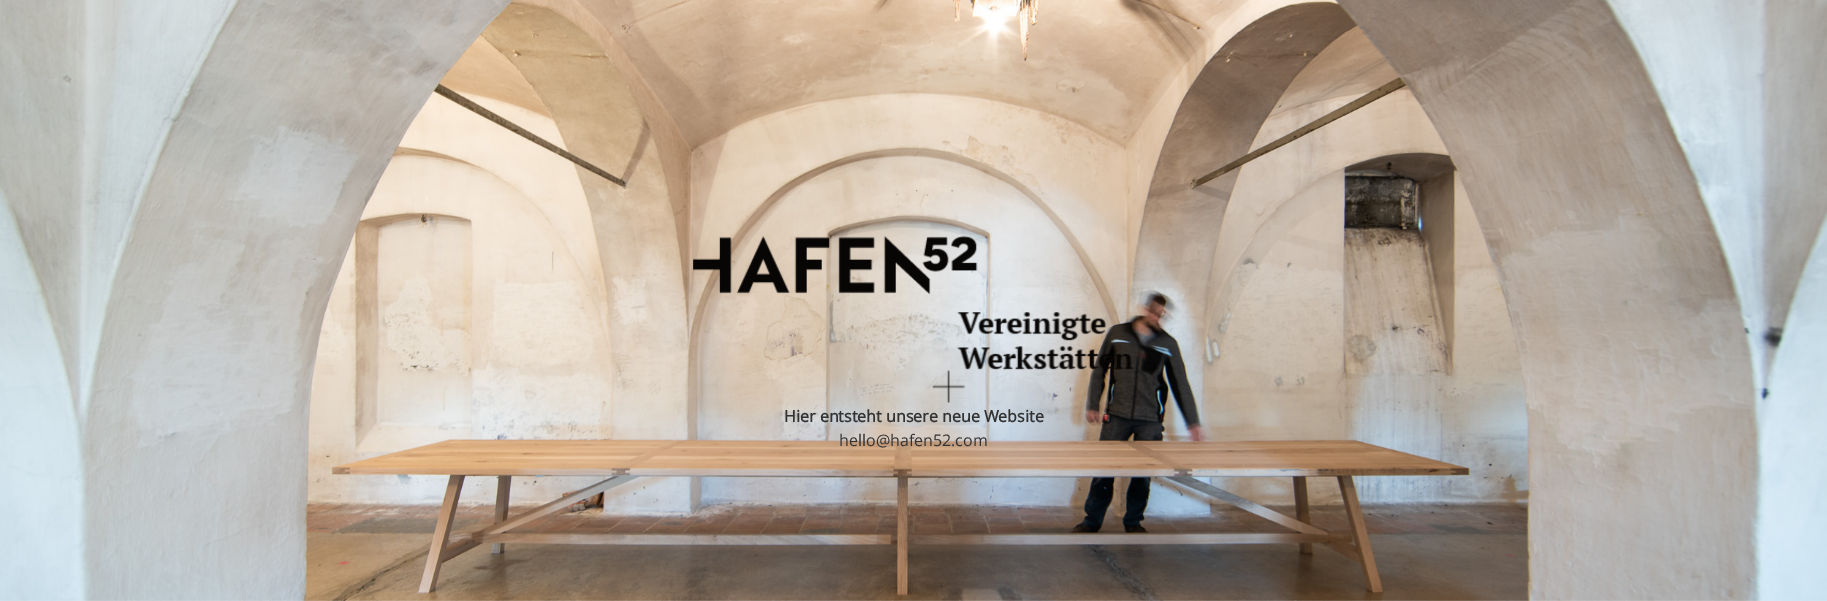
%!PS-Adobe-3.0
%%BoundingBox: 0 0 1827 601
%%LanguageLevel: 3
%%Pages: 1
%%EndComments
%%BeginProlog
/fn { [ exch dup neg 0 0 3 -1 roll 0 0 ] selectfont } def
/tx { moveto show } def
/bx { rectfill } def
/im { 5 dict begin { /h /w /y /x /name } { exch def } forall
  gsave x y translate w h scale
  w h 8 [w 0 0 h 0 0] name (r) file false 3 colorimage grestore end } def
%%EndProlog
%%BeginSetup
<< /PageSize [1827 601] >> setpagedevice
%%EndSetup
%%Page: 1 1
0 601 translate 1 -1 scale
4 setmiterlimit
1 setgray
0 0 1827 601 bx
(image0.raw) 0 0 1827 601 im
(image1.raw) 693 190 441 213 im
/OpenSans-Bold 16 fn
0.2 setgray
(Hier entsteht unsere neue Website) 784 422 tx
/OpenSans-Regular 16 fn
(hello@hafen52.com) 839 446 tx
showpage
%%EOF
